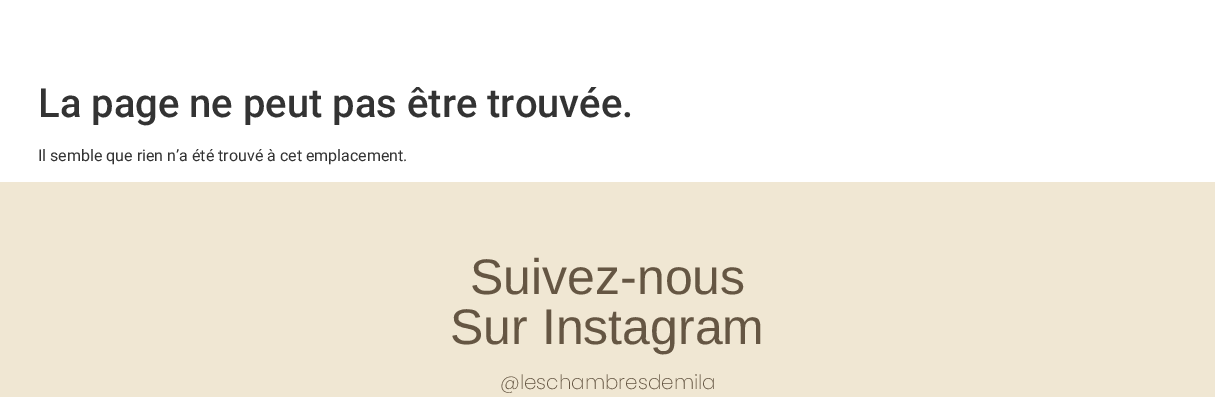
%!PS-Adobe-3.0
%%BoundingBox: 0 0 1215 397
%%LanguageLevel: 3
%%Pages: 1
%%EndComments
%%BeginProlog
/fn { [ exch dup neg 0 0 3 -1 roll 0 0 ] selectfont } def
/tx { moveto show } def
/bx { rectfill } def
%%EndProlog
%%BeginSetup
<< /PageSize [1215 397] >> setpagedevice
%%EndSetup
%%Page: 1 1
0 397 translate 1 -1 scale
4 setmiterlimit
1 setgray
0 0 1215 397 bx
/Roboto-Medium 40 fn
0.2 setgray
(La page ne peut pas être trouvée.) 38 117 tx
/Roboto-Regular 16 fn
(Il semble que rien n’a été trouvé à cet emplacement.) 38 161 tx
0.941 0.906 0.827 setrgbcolor
0 182 1215 215 bx
/LiberationSans-Regular 50 fn
0.396 0.337 0.263 setrgbcolor
(Suivez-nous) 470 294 tx
(Sur Instagram) 450 344 tx
/Poppins-ExtraLight 20 fn
(@leschambresdemila) 500 389 tx
showpage
%%EOF
